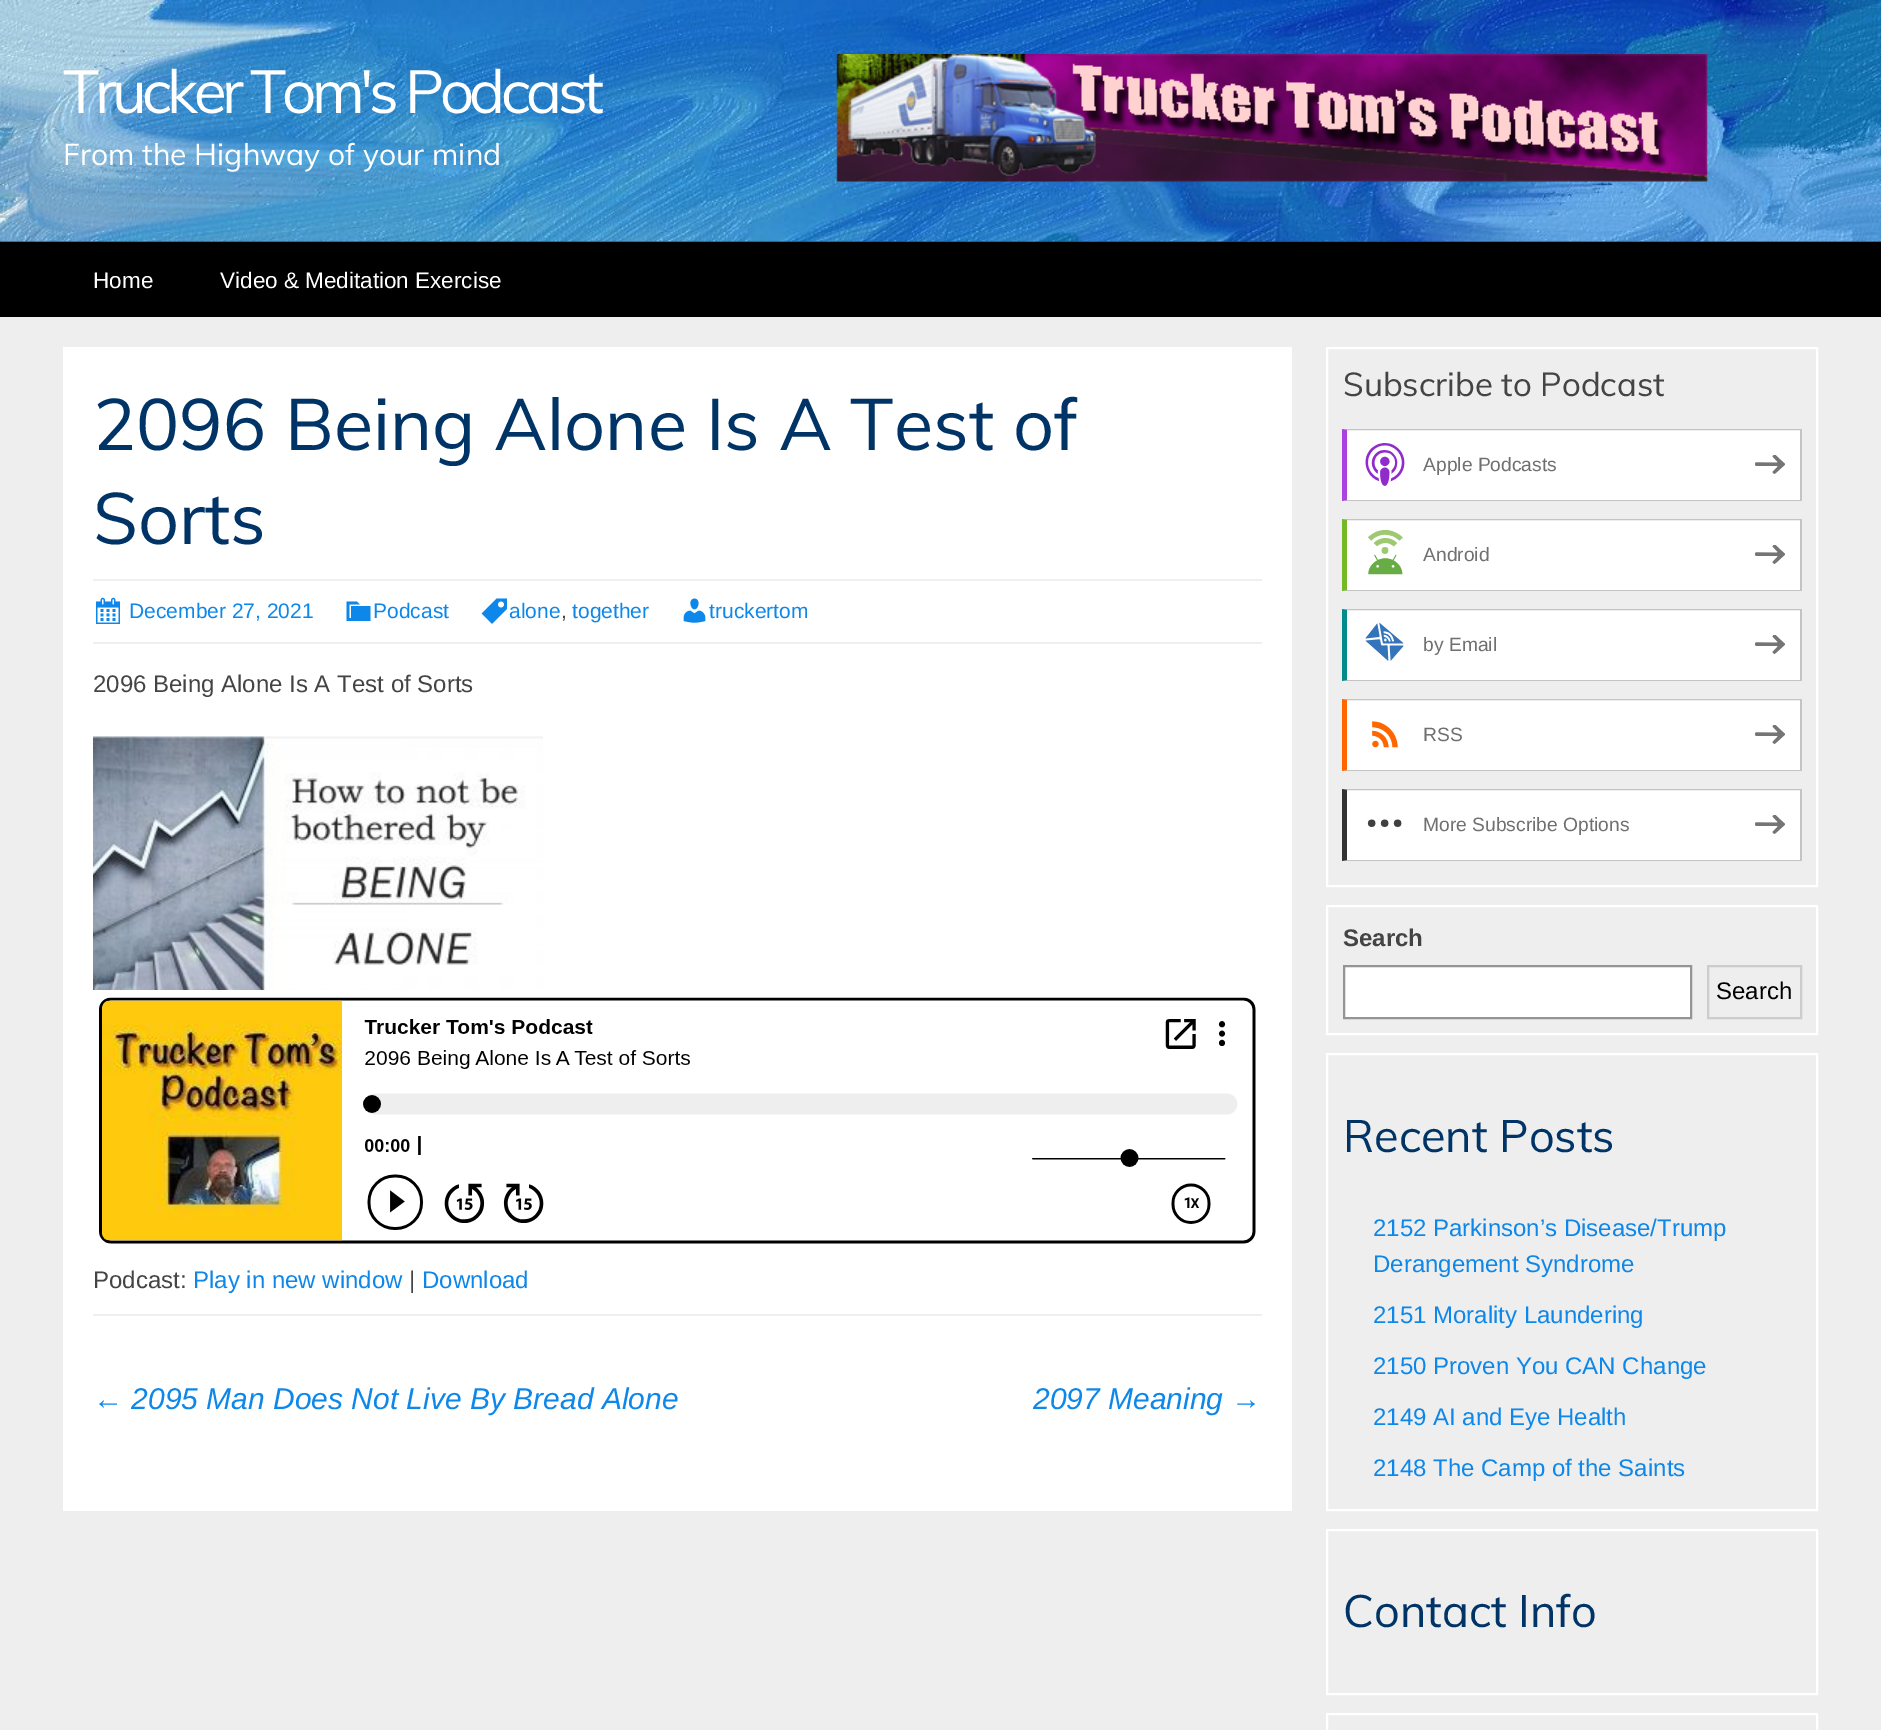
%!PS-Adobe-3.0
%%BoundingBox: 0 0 1881 1730
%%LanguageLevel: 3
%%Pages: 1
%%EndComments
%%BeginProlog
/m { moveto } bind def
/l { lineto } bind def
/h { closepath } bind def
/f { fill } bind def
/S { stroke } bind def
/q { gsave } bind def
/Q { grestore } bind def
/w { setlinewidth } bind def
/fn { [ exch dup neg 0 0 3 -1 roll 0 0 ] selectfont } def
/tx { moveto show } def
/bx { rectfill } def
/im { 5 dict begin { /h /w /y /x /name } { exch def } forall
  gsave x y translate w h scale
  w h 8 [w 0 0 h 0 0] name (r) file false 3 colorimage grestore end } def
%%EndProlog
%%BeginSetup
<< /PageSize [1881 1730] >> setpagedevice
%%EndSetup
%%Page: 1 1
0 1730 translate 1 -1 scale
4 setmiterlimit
0.933 setgray
0 0 1881 1730 bx
0.204 setgray
0 241 1881 1 bx
(image0.raw) 0 0 1881 242 im
/Muli-Regular 60 fn
1 setgray
63 113 m -4.5 0 (Trucker Tom's Podcast) ashow
/Muli-Regular 30 fn
(From the Highway of your mind) 63 165 tx
(image1.raw) 836 54 872 128 im
0 setgray
0 242 1881 75 bx
/LiberationSans-Regular 22.5 fn
1 setgray
(Home) 93 288 tx
(Video & Meditation Exercise) 220 288 tx
63 347 1229 1164 bx
/Muli-Regular 72 fn
0 0.2 0.4 setrgbcolor
(2096 Being Alone Is A Test of) 93 450 tx
(Sorts) 93 544 tx
0.925 0.941 0.945 setrgbcolor
93 579 1169 2 bx
(image2.raw) 96 597 24 27 im
/LiberationSans-Regular 21 fn
0.051 0.529 0.914 setrgbcolor
(December 27, 2021) 129 618 tx
(image3.raw) 346 601 25 20 im
(Podcast) 373 618 tx
(image4.raw) 481 598 26 26 im
(alone) 509 618 tx
0.267 setgray
(,) 561 618 tx
0.051 0.529 0.914 setrgbcolor
(together) 572 618 tx
(image5.raw) 683 598 23 25 im
(truckertom) 709 618 tx
0.925 0.941 0.945 setrgbcolor
93 642 1169 2 bx
/LiberationSans-Regular 24 fn
0.267 setgray
(2096 Being Alone Is A Test of Sorts) 93 692 tx
(image6.raw) 93 736 450 254 im
(image7.raw) 99 997 1157 247 im
(Podcast:) 93 1288 tx
0.051 0.529 0.914 setrgbcolor
(Play in new window) 193 1288 tx
0.267 setgray
(|) 409 1288 tx
0.051 0.529 0.914 setrgbcolor
(Download) 422 1288 tx
0.925 0.941 0.945 setrgbcolor
93 1314 1169 2 bx
/LiberationSans-Italic 30 fn
0.051 0.529 0.914 setrgbcolor
(← 2095 Man Does Not Live By Bread Alone) 93 1409 tx
(2097 Meaning →) 1033 1409 tx
1 setgray
2 w
1327 348 490 538 rectstroke
/Muli-Regular 33 fn
0.267 setgray
(Subscribe to Podcast) 1343 396 tx
1 setgray
1347 431 453 69 bx
0.769 setgray
1342 429 m 1802 429 l 1800 430 l 1347 430 l h f
1800 429 2 72 bx
1802 501 m 1342 501 l 1347 500 l 1800 500 l h f
0.671 0.259 0.875 setrgbcolor
1342 501 m 1342 429 l 1347 430 l 1347 500 l h f
(image8.raw) 1365 443 40 43 im
/LiberationSans-Regular 19.25 fn
0.439 setgray
(Apple Podcasts) 1423 471 tx
(image9.raw) 1755 455 30 19 im
1 setgray
1347 521 453 69 bx
0.769 setgray
1342 519 m 1802 519 l 1800 520 l 1347 520 l h f
1800 519 2 72 bx
1802 591 m 1342 591 l 1347 590 l 1800 590 l h f
0.459 0.729 0.149 setrgbcolor
1342 591 m 1342 519 l 1347 520 l 1347 590 l h f
(image10.raw) 1367 530 36 45 im
0.439 setgray
(Android) 1423 561 tx
(image9.raw) 1755 545 30 19 im
1 setgray
1347 611 453 69 bx
0.769 setgray
1342 609 m 1802 609 l 1800 610 l 1347 610 l h f
1800 609 2 72 bx
1802 681 m 1342 681 l 1347 680 l 1800 680 l h f
0.004 0.549 0.545 setrgbcolor
1342 681 m 1342 609 l 1347 610 l 1347 680 l h f
(image11.raw) 1365 622 39 39 im
0.439 setgray
(by Email) 1423 651 tx
(image9.raw) 1755 635 30 19 im
1 setgray
1347 701 453 69 bx
0.769 setgray
1342 699 m 1802 699 l 1800 700 l 1347 700 l h f
1800 699 2 72 bx
1802 771 m 1342 771 l 1347 770 l 1800 770 l h f
1 0.4 0 setrgbcolor
1342 771 m 1342 699 l 1347 700 l 1347 770 l h f
(image12.raw) 1372 721 26 27 im
0.439 setgray
(RSS) 1423 741 tx
(image9.raw) 1755 725 30 19 im
1 setgray
1347 791 453 69 bx
0.769 setgray
1342 789 m 1802 789 l 1800 790 l 1347 790 l h f
1800 789 2 72 bx
1802 861 m 1342 861 l 1347 860 l 1800 860 l h f
0.2 setgray
1342 861 m 1342 789 l 1347 790 l 1347 860 l h f
(image13.raw) 1367 819 35 8 im
0.439 setgray
(More Subscribe Options) 1423 831 tx
(image9.raw) 1755 815 30 19 im
1 setgray
1327 906 490 128 rectstroke
/LiberationSans-Bold 24 fn
0.267 setgray
(Search) 1343 946 tx
1 setgray
1344 966 m 1691 966 l 1691 1018 l 1344 1018 l h q f Q
0.58 setgray
S
0.8 setgray
1708 966 93 52 rectstroke
/LiberationSans-Regular 24 fn
0 setgray
(Search) 1716 999 tx
1 setgray
1327 1054 490 456 rectstroke
/Muli-Regular 45 fn
0 0.2 0.4 setrgbcolor
(Recent Posts) 1343 1152 tx
/LiberationSans-Regular 24 fn
0.051 0.529 0.914 setrgbcolor
(2152 Parkinson’s Disease/Trump) 1373 1236 tx
(Derangement Syndrome) 1373 1272 tx
(2151 Morality Laundering) 1373 1323 tx
(2150 Proven You CAN Change) 1373 1374 tx
(2149 AI and Eye Health) 1373 1425 tx
(2148 The Camp of the Saints) 1373 1476 tx
1 setgray
1327 1530 490 164 rectstroke
/Muli-Regular 45 fn
0 0.2 0.4 setrgbcolor
(Contact Info) 1343 1627 tx
1 setgray
1327 1714 490 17 rectstroke
showpage
%%EOF
